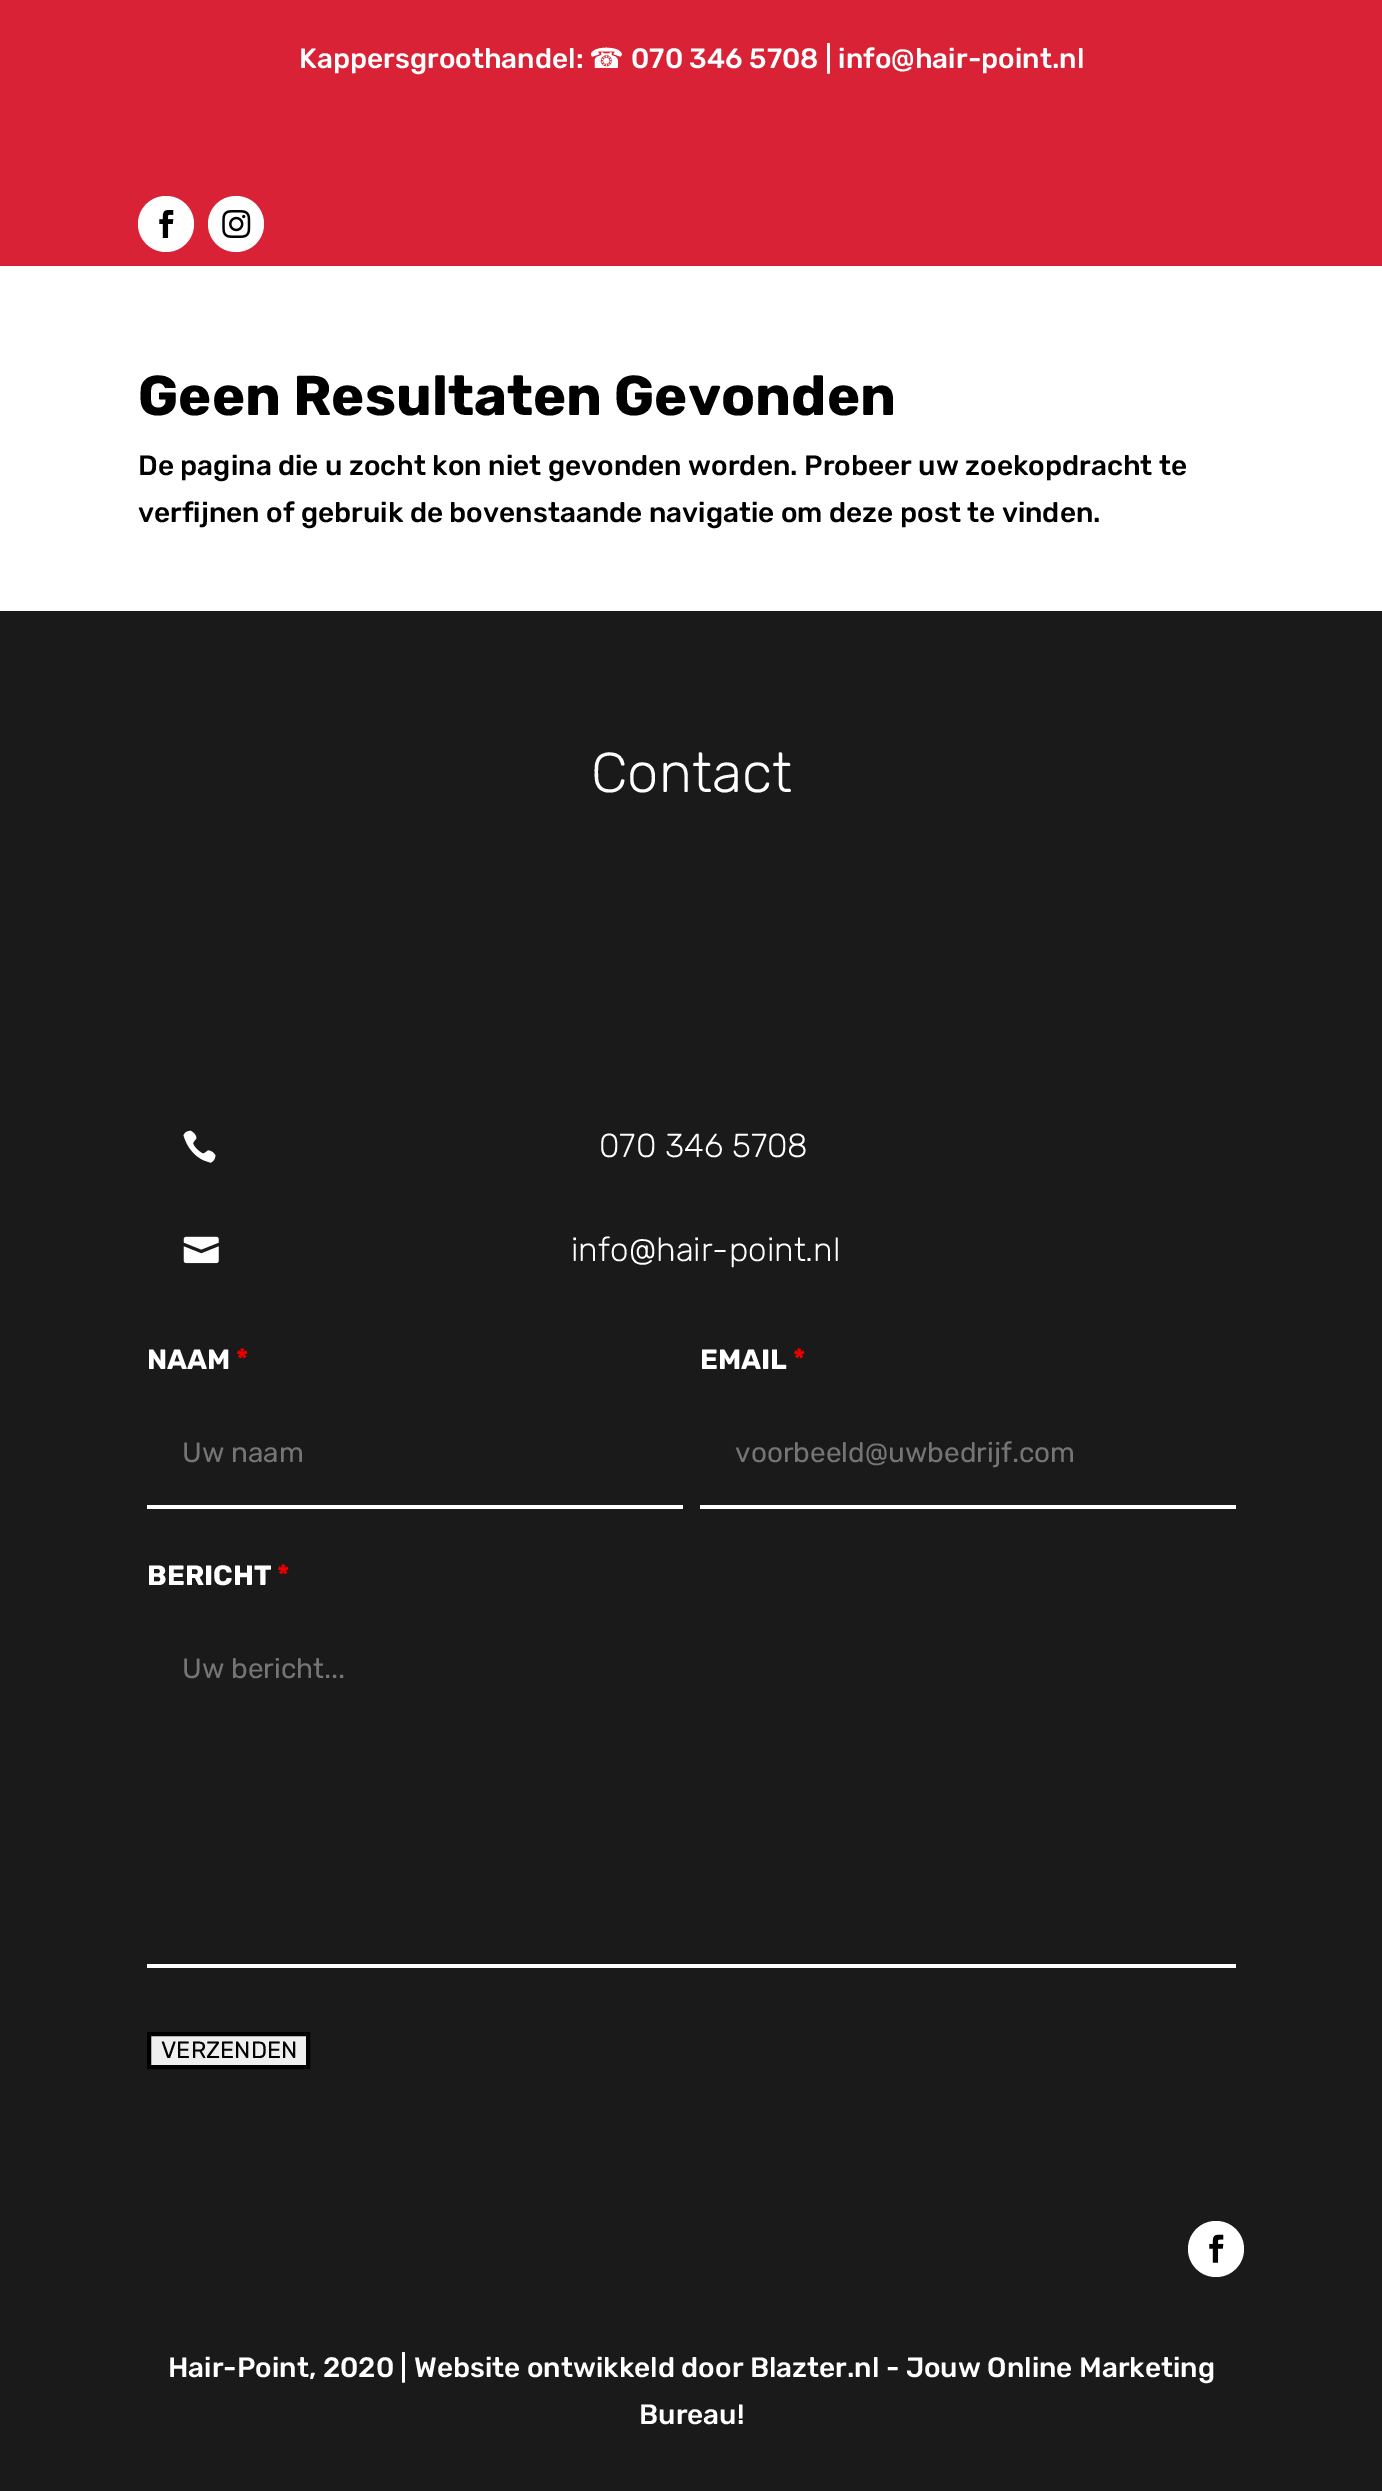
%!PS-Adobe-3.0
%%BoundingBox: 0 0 1382 2491
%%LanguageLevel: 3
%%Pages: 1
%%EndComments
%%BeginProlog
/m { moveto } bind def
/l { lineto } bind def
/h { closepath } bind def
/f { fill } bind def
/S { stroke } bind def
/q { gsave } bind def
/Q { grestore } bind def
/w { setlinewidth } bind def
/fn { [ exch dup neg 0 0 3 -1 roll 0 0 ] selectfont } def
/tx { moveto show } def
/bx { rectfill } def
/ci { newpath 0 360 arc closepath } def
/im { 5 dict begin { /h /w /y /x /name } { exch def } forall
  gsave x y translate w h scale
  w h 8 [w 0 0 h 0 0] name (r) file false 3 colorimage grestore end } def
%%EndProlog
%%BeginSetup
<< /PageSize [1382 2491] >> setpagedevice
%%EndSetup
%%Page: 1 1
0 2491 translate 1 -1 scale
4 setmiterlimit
1 setgray
0 0 1382 2491 bx
0.851 0.133 0.212 setrgbcolor
0 0 1382 266 bx
/Rubik-Medium 28 fn
1 setgray
(Kappersgroothandel:) 299 68 tx
/DejaVuSans-Regular 28 fn
(☎) 589 68 tx
/Rubik-Medium 28 fn
(070 346 5708 | info@hair-point.nl) 631 68 tx
166 224 28 ci f
(image0.raw) 159 210 15 28 im
236 224 28 ci f
(image1.raw) 222 210 29 28 im
/Rubik-Bold 56 fn
0 setgray
(Geen Resultaten Gevonden) 138 415 tx
/Rubik-Medium 28 fn
(De pagina die u zocht kon niet gevonden worden. Probeer uw zoekopdracht te) 138 475 tx
(verfijnen of gebruik de bovenstaande navigatie om deze post te vinden.) 138 522 tx
0.102 setgray
0 611 1382 1880 bx
/Rubik-Light 56 fn
1 setgray
(Contact) 591 792 tx
(image2.raw) 183 1130 33 33 im
/Rubik-Light 33.25 fn
(070 346 5708) 599 1157 tx
(image3.raw) 183 1236 36 28 im
(info@hair-point.nl) 571 1261 tx
/Rubik-Bold 28 fn
(NAAM) 147 1369 tx
0.91 0 0 setrgbcolor
(*) 236 1369 tx
1 setgray
147 1505 536 4 bx
/Rubik-Regular 28 fn
0.459 setgray
(Uw naam) 182 1462 tx
/Rubik-Bold 28 fn
1 setgray
(EMAIL) 700 1369 tx
0.91 0 0 setrgbcolor
(*) 793 1369 tx
1 setgray
700 1505 536 4 bx
/Rubik-Regular 28 fn
0.459 setgray
(voorbeeld@uwbedrijf.com) 735 1462 tx
/Rubik-Bold 28 fn
1 setgray
(BERICHT) 147 1585 tx
0.91 0 0 setrgbcolor
(*) 277 1585 tx
1 setgray
147 1964 1089 4 bx
/Rubik-Regular 28 fn
0.459 setgray
(Uw bericht...) 182 1678 tx
0.937 setgray
149 2034 m 308 2034 l 308 2067 l 149 2067 l h q f Q
0 setgray
4 w
S
/Rubik-Regular 23.5 fn
(VERZENDEN) 161 2058 tx
1 setgray
1216 2249 28 ci f
(image4.raw) 1209 2234 15 29 im
/Rubik-Medium 28 fn
(Hair-Point, 2020 | Website ontwikkeld door Blazter.nl - Jouw Online Marketing) 168 2377 tx
(Bureau!) 639 2424 tx
showpage
%%EOF
